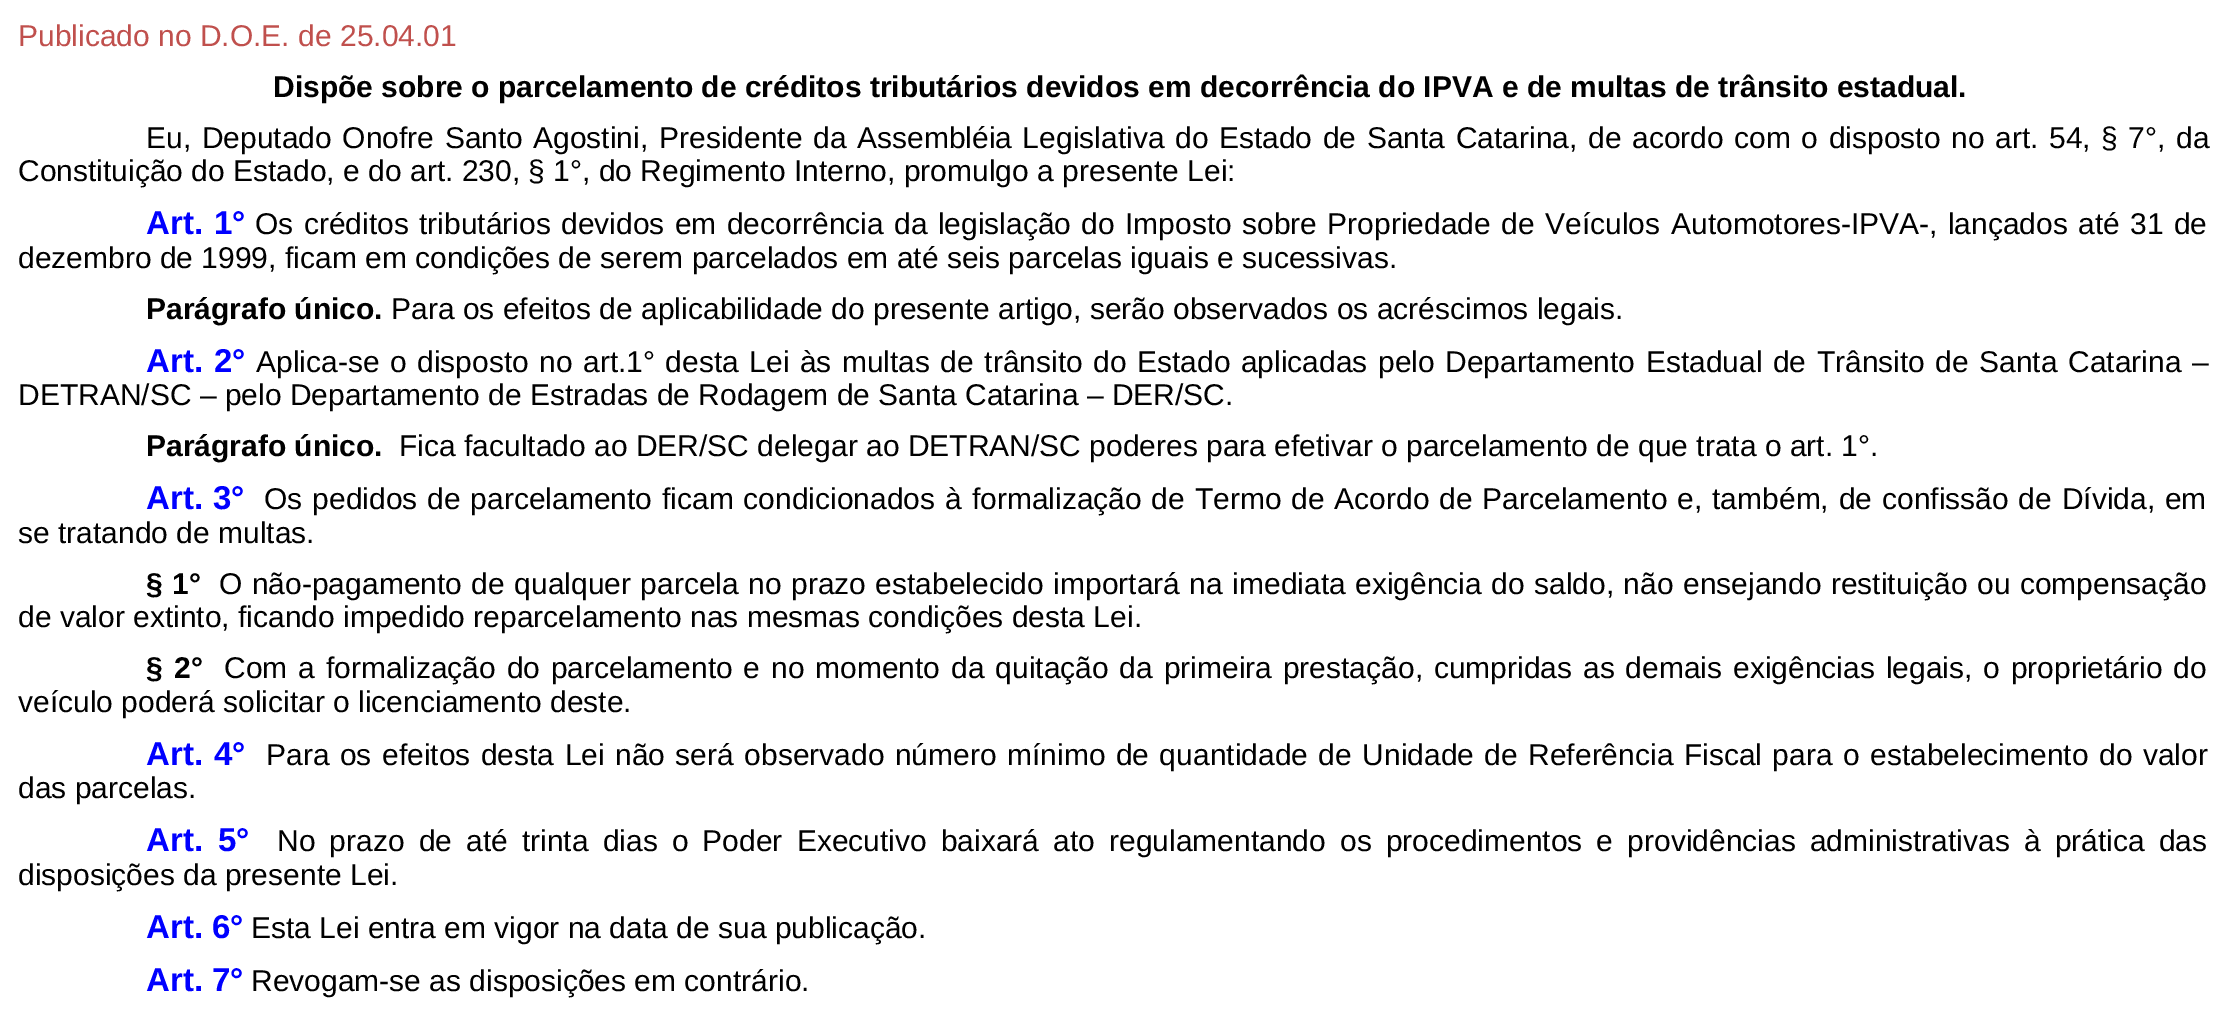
%!PS-Adobe-3.0
%%BoundingBox: 0 0 2224 1018
%%LanguageLevel: 3
%%Pages: 1
%%EndComments
%%BeginProlog
/m { moveto } bind def
/fn { [ exch dup neg 0 0 3 -1 roll 0 0 ] selectfont } def
/tx { moveto show } def
/bx { rectfill } def
%%EndProlog
%%BeginSetup
<< /PageSize [2224 1018] >> setpagedevice
%%EndSetup
%%Page: 1 1
0 1018 translate 1 -1 scale
4 setmiterlimit
1 setgray
0 0 2224 1018 bx
/LiberationSans-Regular 30 fn
0.753 0.314 0.302 setrgbcolor
(Publicado no D.O.E. de 25.04.01) 18 46 tx
/LiberationSans-Bold 30 fn
0 setgray
(Dispõe sobre o parcelamento de créditos tributários devidos em decorrência do IPVA e de multas de trânsito estadual.) 273 97 tx
/LiberationSans-Regular 30 fn
146 148 m 2.25 0 32 (Eu, Deputado Onofre Santo) widthshow
(Agostini) 533 148 tx
640 148 m 2.25 0 32 (, Presidente da Assembléia Legislativa do Estado de Santa Catarina, de acordo com o disposto no art. 54, § 7°, da) widthshow
(Constituição do Estado, e do art. 230, § 1°, do Regimento Interno, promulgo a presente Lei:) 18 181 tx
/LiberationSans-Bold 33 fn
0 0 1 setrgbcolor
146 234 m 2 0 32 (Art. 1°) widthshow
/LiberationSans-Regular 30 fn
0 setgray
255 234 m 2 0 32 (Os créditos tributários devidos em decorrência da legislação do Imposto sobre Propriedade de Veículos) widthshow
(Automotores-IPVA) 1671 234 tx
1919 234 m 2 0 32 (-, lançados) widthshow
2078 234 m 2 0 32 (até 31 de) widthshow
(dezembro de 1999, ficam em condições de serem parcelados em até seis parcelas iguais e sucessivas.) 18 268 tx
/LiberationSans-Bold 30 fn
(Parágrafo único.) 146 319 tx
/LiberationSans-Regular 30 fn
(Para os efeitos de aplicabilidade do presente artigo, serão observados os acréscimos legais.) 391 319 tx
/LiberationSans-Bold 33 fn
0 0 1 setrgbcolor
146 372 m 2 0 32 (Art. 2°) widthshow
/LiberationSans-Regular 30 fn
0 setgray
256 372 m 2.1 0 32 (Aplica-se o disposto no art.1° desta Lei às multas de trânsito do Estado aplicadas pelo Departamento Estadual de Trânsito de Santa Catarina –) widthshow
(DETRAN/SC – pelo Departamento de Estradas de Rodagem de Santa Catarina – DER/SC.) 18 405 tx
/LiberationSans-Bold 30 fn
(Parágrafo único.) 146 456 tx
/LiberationSans-Regular 30 fn
(Fica facultado ao DER/SC delegar ao DETRAN/SC poderes para efetivar o parcelamento de que trata o art. 1°.) 399 456 tx
/LiberationSans-Bold 33 fn
0 0 1 setrgbcolor
146 509 m 1 0 32 (Art. 3°) widthshow
/LiberationSans-Regular 30 fn
0 setgray
264 509 m 1.5 0 32 (Os pedidos de parcelamento ficam condicionados à formalização de Termo de Acordo de Parcelamento e, também, de confissão de Dívida, em) widthshow
(se tratando de multas.) 18 543 tx
/LiberationSans-Bold 30 fn
146 594 m 1 0 32 (§ 1°) widthshow
/LiberationSans-Regular 30 fn
219 594 m 1.1 0 32 (O não-pagamento de qualquer parcela no prazo estabelecido importará na imediata exigência do saldo, não ensejando restituição ou compensação) widthshow
(de valor extinto, ficando impedido reparcelamento nas mesmas condições desta Lei.) 18 627 tx
/LiberationSans-Bold 30 fn
146 678 m 3 0 32 (§ 2°) widthshow
/LiberationSans-Regular 30 fn
224 678 m 2.5 0 32 (Com a formalização do parcelamento e no momento da quitação da primeira prestação, cumpridas as demais exigências legais, o proprietário do) widthshow
(veículo poderá solicitar o licenciamento deste.) 18 712 tx
/LiberationSans-Bold 33 fn
0 0 1 setrgbcolor
146 765 m 2 0 32 (Art. 4°) widthshow
/LiberationSans-Regular 30 fn
0 setgray
266 765 m 2.1 0 32 (Para os efeitos desta Lei não será observado número mínimo de quantidade de Unidade de Referência Fiscal para o estabelecimento do valor) widthshow
(das parcelas.) 18 798 tx
/LiberationSans-Bold 33 fn
0 0 1 setrgbcolor
146 851 m 5.75 0 32 (Art. 5°) widthshow
/LiberationSans-Regular 30 fn
0 setgray
277 851 m 5.75 0 32 (No prazo de até trinta dias o Poder Executivo baixará ato regulamentando os procedimentos e providências administrativas à prática das) widthshow
(disposições da presente Lei.) 18 885 tx
/LiberationSans-Bold 33 fn
0 0 1 setrgbcolor
(Art. 6°) 146 938 tx
/LiberationSans-Regular 30 fn
0 setgray
(Esta Lei entra em vigor na data de sua publicação.) 251 938 tx
/LiberationSans-Bold 33 fn
0 0 1 setrgbcolor
(Art. 7°) 146 991 tx
/LiberationSans-Regular 30 fn
0 setgray
(Revogam-se as disposições em contrário.) 251 991 tx
showpage
%%EOF
